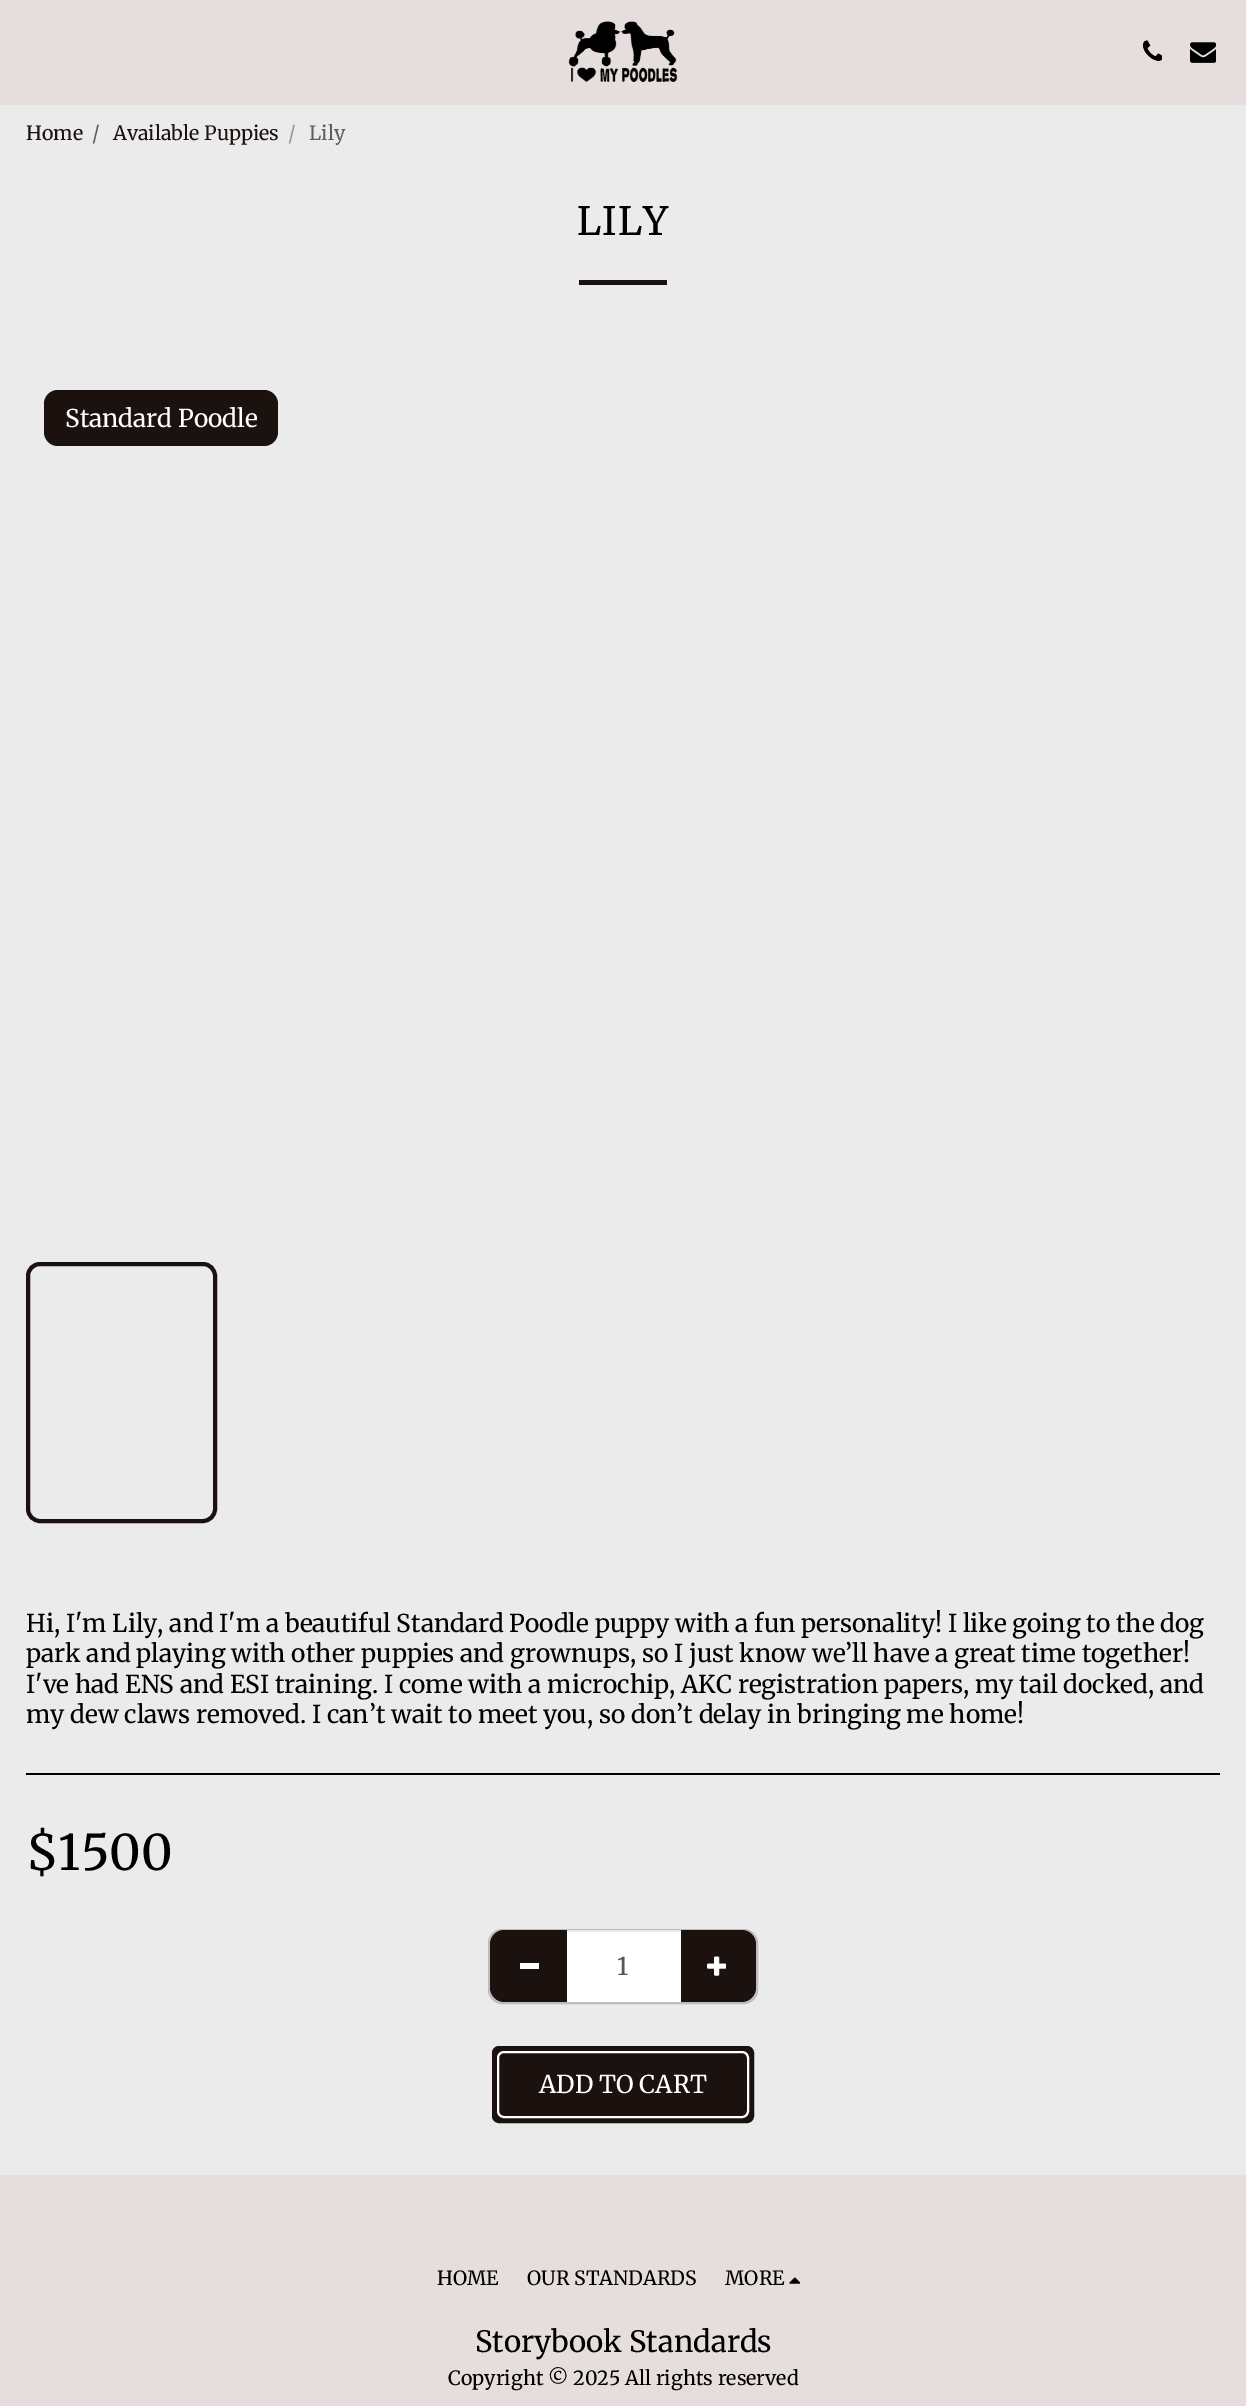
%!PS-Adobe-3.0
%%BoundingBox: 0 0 1246 2406
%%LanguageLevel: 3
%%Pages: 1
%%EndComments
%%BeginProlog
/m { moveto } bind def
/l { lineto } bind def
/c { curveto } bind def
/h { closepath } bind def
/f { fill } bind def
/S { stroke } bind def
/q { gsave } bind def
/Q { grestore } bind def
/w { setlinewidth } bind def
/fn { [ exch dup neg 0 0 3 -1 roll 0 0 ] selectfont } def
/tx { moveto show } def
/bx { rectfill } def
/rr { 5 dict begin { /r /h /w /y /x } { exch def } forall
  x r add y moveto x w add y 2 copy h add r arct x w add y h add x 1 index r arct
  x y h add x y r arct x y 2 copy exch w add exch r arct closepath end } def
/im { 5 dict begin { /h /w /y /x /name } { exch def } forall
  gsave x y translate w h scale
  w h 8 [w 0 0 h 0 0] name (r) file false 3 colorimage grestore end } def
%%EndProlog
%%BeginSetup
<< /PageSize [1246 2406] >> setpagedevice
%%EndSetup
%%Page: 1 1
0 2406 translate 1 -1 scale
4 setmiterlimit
0.922 setgray
0 0 1246 2406 bx
0.902 0.871 0.867 setrgbcolor
0 0 1246 105 bx
(image0.raw) 568 21 110 61 im
(image1.raw) 1143 40 19 21 im
(image2.raw) 1190 42 26 21 im
/Merriweather-Regular 19.6 fn
0.106 0.071 0.059 setrgbcolor
(Home) 26 140 tx
0.369 setgray
(/) 92 140 tx
0.106 0.071 0.059 setrgbcolor
(Available Puppies) 113 140 tx
0.588 setgray
(/) 288 140 tx
0.369 setgray
(Lily) 309 140 tx
/Merriweather-Regular 39 fn
0 setgray
577 235 m 1 0 (LILY) ashow
0.106 0.071 0.059 setrgbcolor
579 280 88 5 bx
44 390 234 56 14 rr f
/Merriweather-Regular 24.5 fn
1 setgray
(Standard Poodle) 65 427 tx
0.106 0.071 0.059 setrgbcolor
4 w
28 1264 187 257 12 rr S
0 setgray
(Hi, I'm Lily, and I'm a beautiful Standard Poodle puppy with a fun personality! I like going to the dog) 26 1632 tx
(park and playing with other puppies and grownups, so I just know we’ll have a great time together!) 26 1662 tx
(I've had ENS and ESI training. I come with a microchip, AKC registration papers, my tail docked, and) 26 1693 tx
(my dew claws removed. I can’t wait to meet you, so don’t delay in bringing me home!) 26 1723 tx
26 1773 1194 2 bx
/Merriweather-Regular 49 fn
($1500) 26 1870 tx
0.737 setgray
2 w
489 1930 268 73 13 rr S
0.106 0.071 0.059 setrgbcolor
504 1930 m 569 1930 l 569 2002 l 504 2002 l 496.5 2002 490 1995.5 490 1988 c 490 1944 l 490 1936.5 496.5 1930 504 1930 c h f
1 setgray
520 1963 19 6 bx
0.106 0.071 0.059 setrgbcolor
679 1930 m 742 1930 l 749.5 1930 756 1936.5 756 1944 c 756 1988 l 756 1995.5 749.5 2002 742 2002 c 679 2002 l h f
1 setgray
567 1932 114 70 bx
0.925 setgray
567 1930 114 2 bx
/Merriweather-Regular 24.5 fn
0.333 setgray
(1) 617 1975 tx
(image3.raw) 707 1956 19 20 im
0.106 0.071 0.059 setrgbcolor
493 2047 260 75 6 rr q f Q
S
1 setgray
498 2052 250 65 6 rr S
(ADD TO CART) 539 2093 tx
0.902 0.871 0.867 setrgbcolor
0 2175 1246 231 bx
/Merriweather-Regular 19.6 fn
0 setgray
(HOME) 437 2285 tx
(OUR STANDARDS) 527 2285 tx
(MORE) 725 2285 tx
(image4.raw) 789 2277 11 7 im
/Merriweather-Regular 29.4 fn
(Storybook Standards) 475 2352 tx
/Merriweather-Regular 19.6 fn
(Copyright © 2025 All rights reserved) 448 2385 tx
showpage
%%EOF
